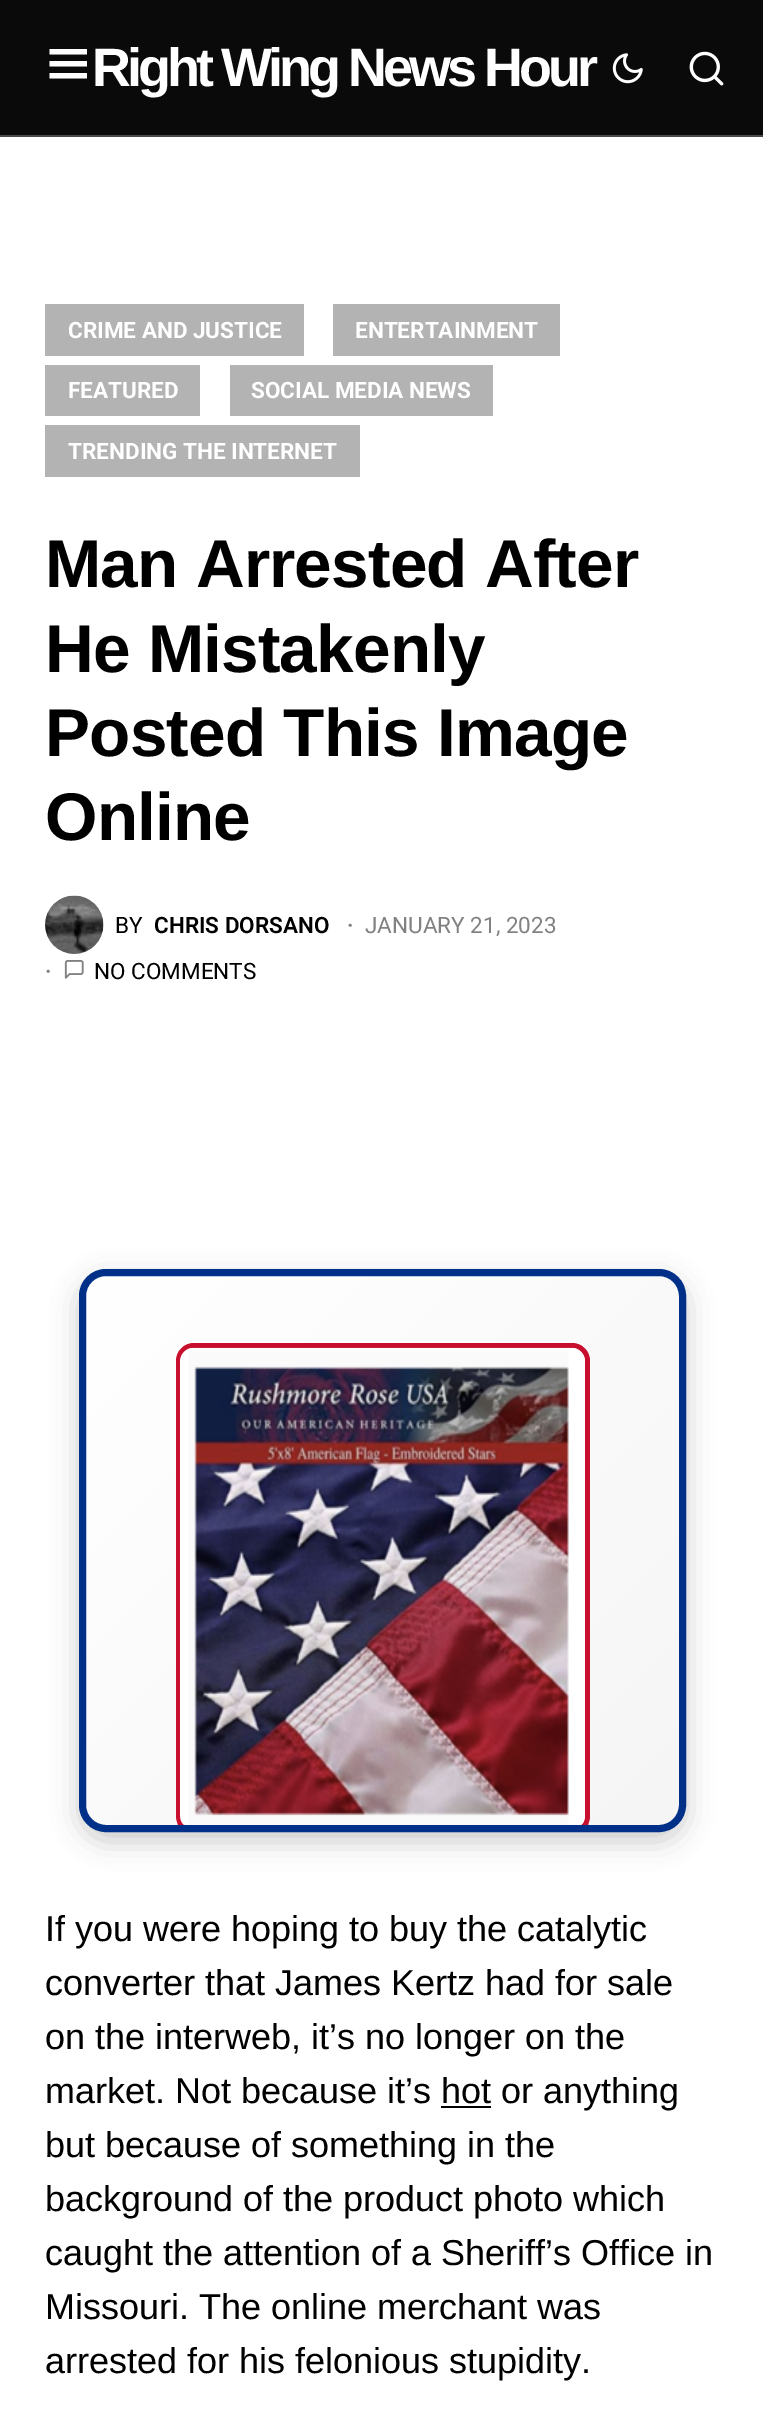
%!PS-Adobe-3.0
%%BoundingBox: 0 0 763 2425
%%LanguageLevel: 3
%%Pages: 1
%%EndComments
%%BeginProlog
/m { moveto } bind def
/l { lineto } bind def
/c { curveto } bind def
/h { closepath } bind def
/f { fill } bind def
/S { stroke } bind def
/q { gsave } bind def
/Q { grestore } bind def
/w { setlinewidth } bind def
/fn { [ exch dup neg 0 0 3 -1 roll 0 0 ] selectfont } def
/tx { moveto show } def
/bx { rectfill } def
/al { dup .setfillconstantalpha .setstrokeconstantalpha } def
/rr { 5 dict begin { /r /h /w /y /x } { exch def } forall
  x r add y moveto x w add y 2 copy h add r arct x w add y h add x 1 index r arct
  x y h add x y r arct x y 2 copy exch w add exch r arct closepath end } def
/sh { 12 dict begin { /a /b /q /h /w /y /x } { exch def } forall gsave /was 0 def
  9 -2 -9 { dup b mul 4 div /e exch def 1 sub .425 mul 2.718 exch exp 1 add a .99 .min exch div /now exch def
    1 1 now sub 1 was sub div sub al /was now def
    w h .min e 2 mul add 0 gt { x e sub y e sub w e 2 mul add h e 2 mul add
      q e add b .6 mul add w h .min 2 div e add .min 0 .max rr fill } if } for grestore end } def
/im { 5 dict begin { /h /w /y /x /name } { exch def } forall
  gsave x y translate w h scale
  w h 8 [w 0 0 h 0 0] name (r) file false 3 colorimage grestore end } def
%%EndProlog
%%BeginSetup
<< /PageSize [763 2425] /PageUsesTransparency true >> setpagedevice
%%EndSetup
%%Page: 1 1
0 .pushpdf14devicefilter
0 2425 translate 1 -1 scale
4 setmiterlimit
1 setgray
0 0 763 2425 bx
0.039 setgray
0 0 763 135 bx
0.286 setgray
0 135 763 2 bx
1 setgray
49.5 49 m 87 49 l 87 54.5 l 49.5 54.5 l h 49.5 61 m 87 61 l 87 66.5 l 49.5 66.5 l h 49.5 73 m 87 73 l 87 78.5 l 49.5 78.5 l h f
/LiberationSans-Bold 54 fn
92 86 m -4 0 (Right Wing News Hour) ashow
(image0.raw) 612 53 31 31 im
(image1.raw) 689 51 35 35 im
0.702 setgray
45 304 259 52 bx
/Roboto-Bold 22.5 fn
1 setgray
(CRIME AND JUSTICE) 68 338 tx
0.702 setgray
333 304 227 52 bx
1 setgray
(ENTERTAINMENT) 355 338 tx
0.702 setgray
45 365 155 51 bx
1 setgray
(FEATURED) 68 398 tx
0.702 setgray
230 365 263 51 bx
1 setgray
(SOCIAL MEDIA NEWS) 251 398 tx
0.702 setgray
45 425 315 52 bx
1 setgray
(TRENDING THE INTERNET) 68 459 tx
/LiberationSans-Bold 67.5 fn
0 setgray
45 587 m -0.8 0 (Man Arrested After) ashow
45 672 m -0.8 0 (He Mistakenly) ashow
45 756 m -0.8 0 (Posted This Image) ashow
45 840 m -0.8 0 (Online) ashow
(image2.raw) 45 895 59 59 im
/Roboto-Regular 22.5 fn
(BY) 115 933 tx
/Roboto-SemiBold 22.5 fn
(CHRIS DORSANO) 154 933 tx
0.506 setgray
(·) 347 933 tx
/Roboto-Regular 22.5 fn
(JANUARY 21, 2023) 365 933 tx
/Roboto-SemiBold 22.5 fn
(·) 45 979 tx
(image3.raw) 64 960 20 19 im
/Roboto-Regular 22.5 fn
0 setgray
(NO COMMENTS) 94 979 tx
79 1278 607 563 27 13.5 0.2 sh
q
79 1269 607 563 27 rr clip newpath
q 86 1276 m 680 1276 l 680 1825 l 86 1825 l h clip newpath
<< /ShadingType 2 /ColorSpace /DeviceRGB /Coords [97 1265 668 1836] /Extend [true true] /Function << /FunctionType 2 /Domain [0 1] /C0 [1 1 1] /C1 [0.961 0.961 0.961] /N 1 >> >> shfill Q
Q
0 0.188 0.529 setrgbcolor
7 w
82.5 1272.5 600 556 23.5 rr S
0.784 0.063 0.18 setrgbcolor
194 1343 m 184 1343 176 1351 176 1361 c 176 1816 l 176 1819 177 1822 178 1825 c 185 1825 l 182 1823 181 1819 181 1816 c 181 1361 l 181 1354 187 1348 194 1348 c 572 1348 l 579 1348 585 1354 585 1361 c 585 1816 l 585 1819 584 1823 581 1825 c 588 1825 l 589 1822 590 1819 590 1816 c 590 1361 l 590 1351 582 1343 572 1343 c h f
(image4.raw) 180 1347 405 478 im
/LiberationSans-Regular 36 fn
0 setgray
(If you were hoping to buy the catalytic) 45 1941 tx
(converter that James Kertz had for sale) 45 1995 tx
(on the interweb, it’s no longer on the) 45 2049 tx
(market. Not because it’s hot or anything) 45 2103 tx
441 2106 50 2 bx
(but because of something in the) 45 2157 tx
(background of the product photo which) 45 2211 tx
(caught the attention of a Sheriff’s Office in) 45 2265 tx
(Missouri. The online merchant was) 45 2319 tx
(arrested for his felonious stupidity.) 45 2373 tx
.poppdf14devicefilter showpage
%%EOF
